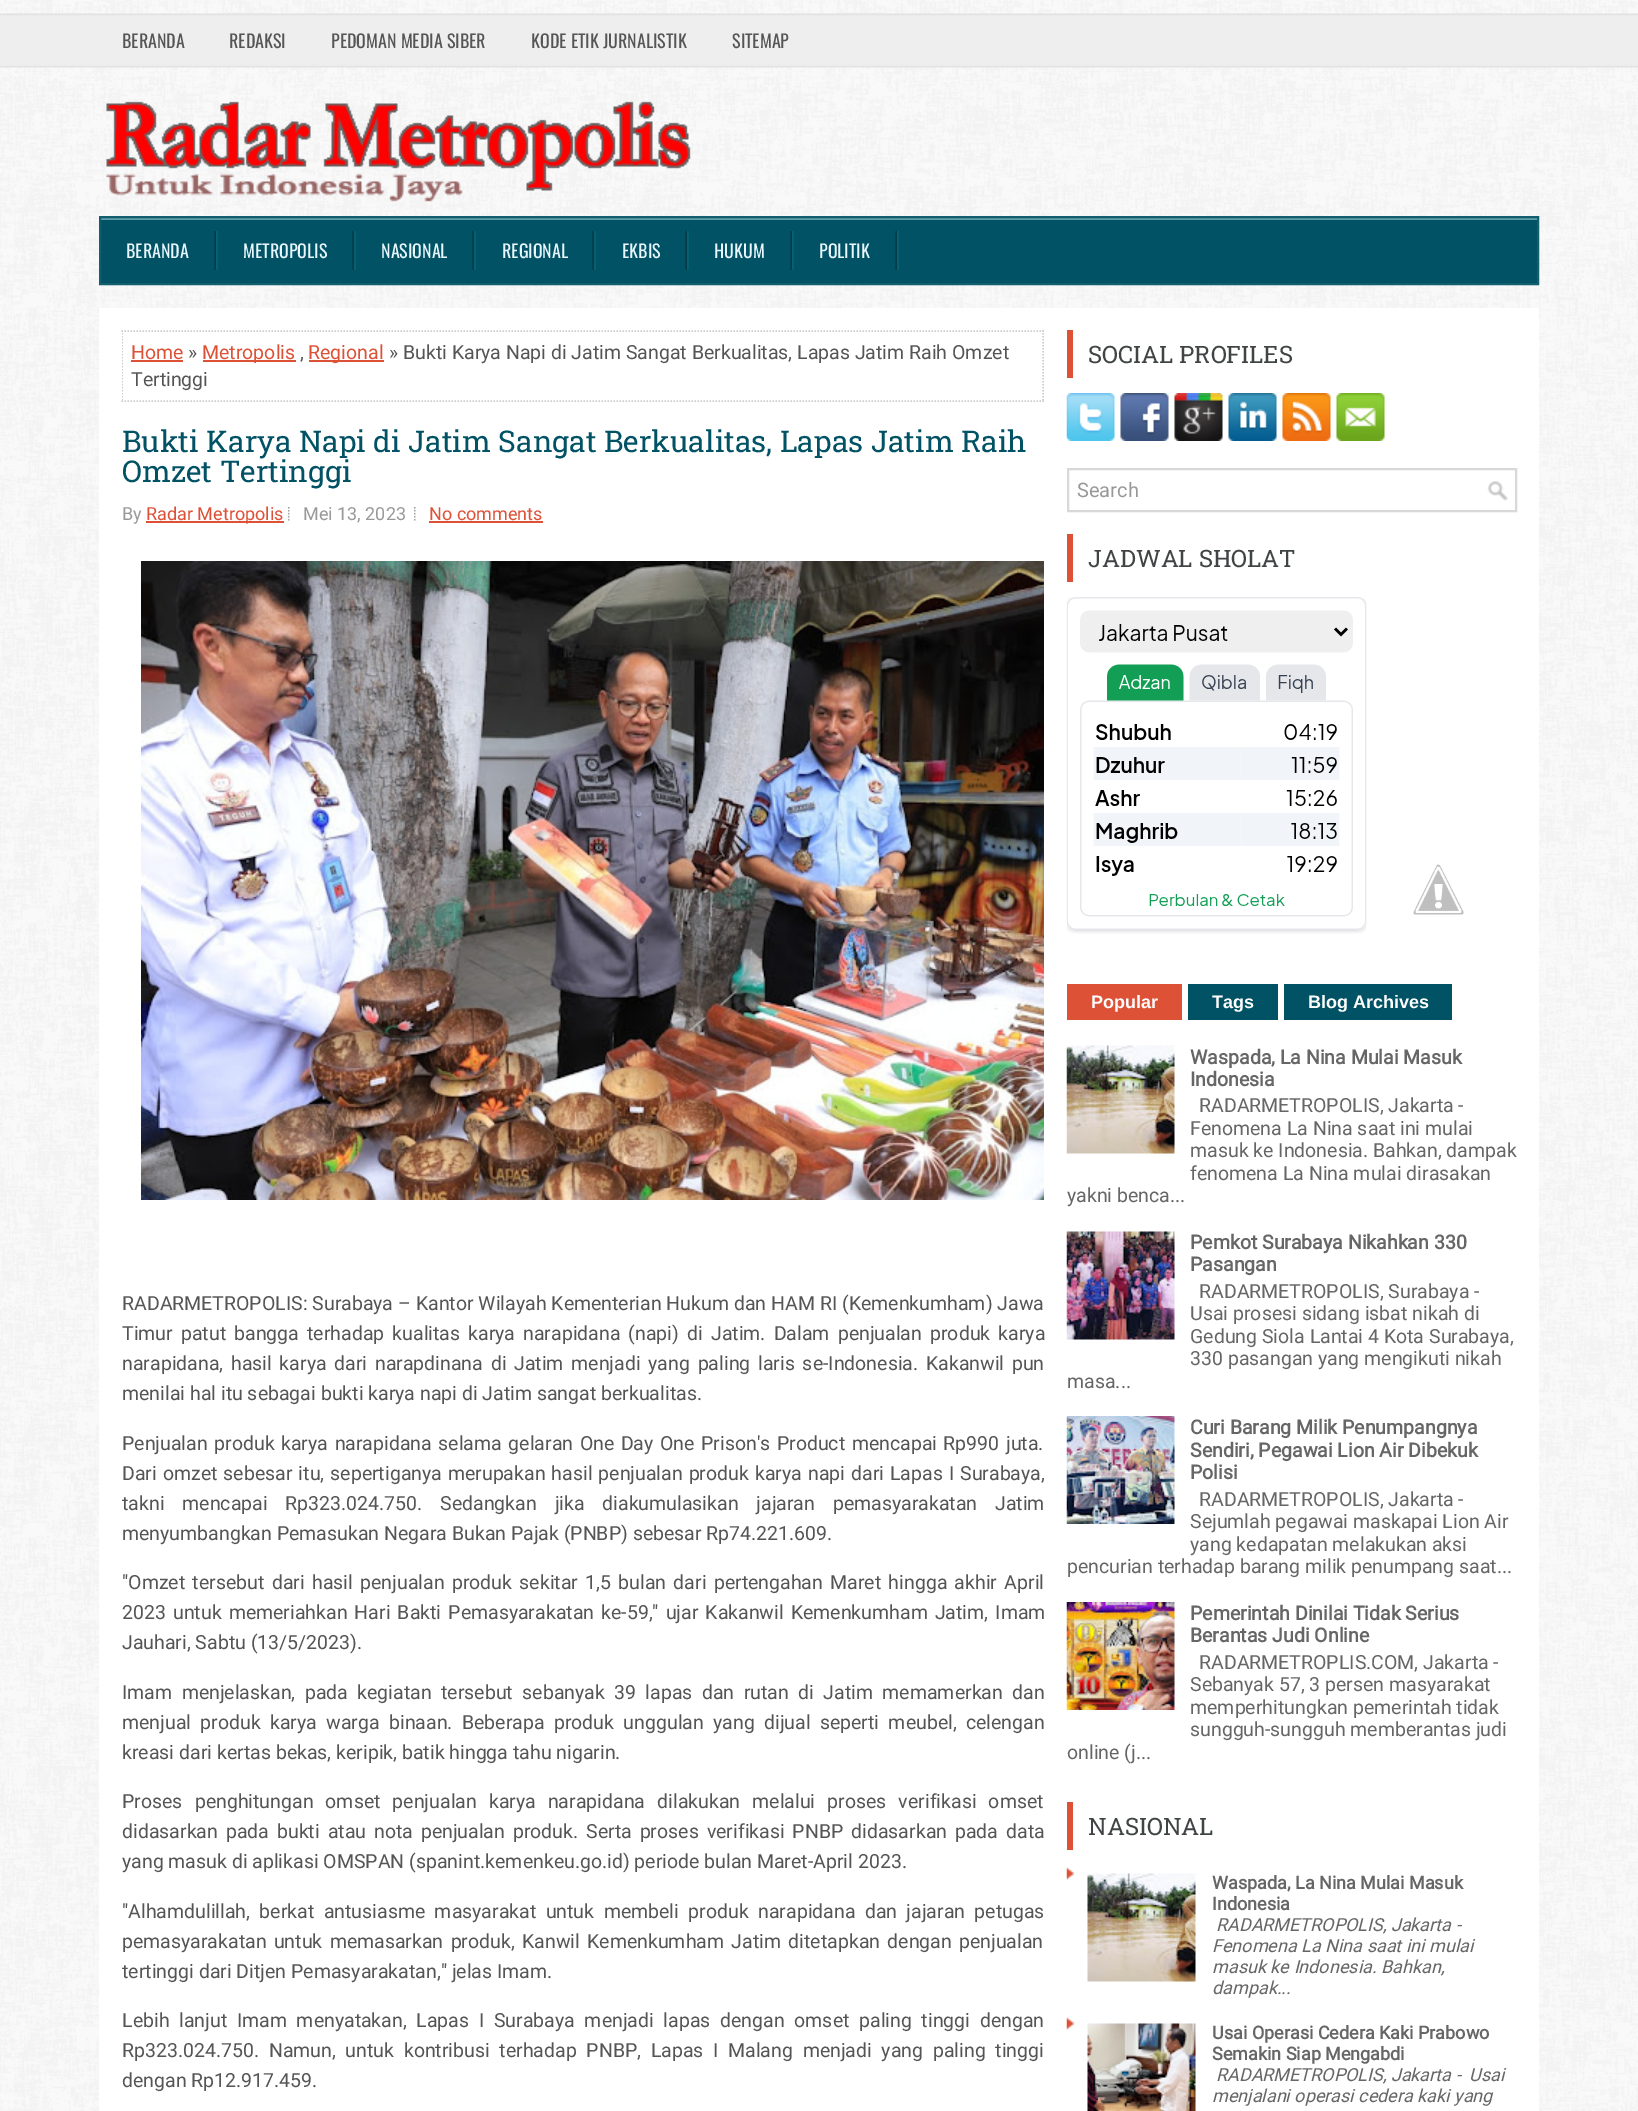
%!PS-Adobe-3.0
%%BoundingBox: 0 0 1638 2111
%%LanguageLevel: 3
%%Pages: 1
%%EndComments
%%BeginProlog
/m { moveto } bind def
/l { lineto } bind def
/S { stroke } bind def
/q { gsave } bind def
/Q { grestore } bind def
/w { setlinewidth } bind def
/fn { [ exch dup neg 0 0 3 -1 roll 0 0 ] selectfont } def
/tx { moveto show } def
/bx { rectfill } def
/im { 5 dict begin { /h /w /y /x /name } { exch def } forall
  gsave x y translate w h scale
  w h 8 [w 0 0 h 0 0] name (r) file false 3 colorimage grestore end } def
%%EndProlog
%%BeginSetup
<< /PageSize [1638 2111] >> setpagedevice
%%EndSetup
%%Page: 1 1
0 2111 translate 1 -1 scale
4 setmiterlimit
1 setgray
0 0 1638 2111 bx
(image0.raw) 0 0 1638 2111 im
/Oswald-Regular 18 fn
0.333 setgray
(BERANDA) 122 48 tx
(REDAKSI) 229 48 tx
(PEDOMAN MEDIA SIBER) 331 48 tx
(KODE ETIK JURNALISTIK) 531 48 tx
(SITEMAP) 732 48 tx
(image1.raw) 106 101 585 101 im
0.004 0.322 0.392 setrgbcolor
101 220 1436 63 bx
0.38 0.624 0.678 setrgbcolor
101 218 1437 2 bx
0.071 0.365 0.431 setrgbcolor
2 w
100 217 1438 67 rectstroke
(image2.raw) 214 231 4 39 im
0.914 0.973 1 setrgbcolor
(BERANDA) 126 258 tx
(image2.raw) 352 231 4 39 im
(METROPOLIS) 243 258 tx
(image2.raw) 472 231 4 39 im
(NASIONAL) 381 258 tx
(image2.raw) 592 231 4 39 im
(REGIONAL) 502 258 tx
(image2.raw) 685 231 4 39 im
(EKBIS) 622 258 tx
(image2.raw) 790 231 4 39 im
(HUKUM) 714 258 tx
(image2.raw) 895 231 4 39 im
(POLITIK) 819 258 tx
1 setgray
99 308 1440 1803 bx
0.8 setgray
1.5 w
[1.5 1.5] 0 setdash
121.5 331 m 1044 331 l S
1043 330 m 1043 402 l S
121.5 401 m 1044 401 l S
q
122 330 922 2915 rectclip
122 330 m 122 402 l S
Q
/Roboto-Regular 19.5 fn
0.867 0.318 0.216 setrgbcolor
(Home) 131 359 tx
131 360 52 2 bx
0.333 setgray
(») 188 359 tx
0.867 0.318 0.216 setrgbcolor
203 360 93 2 bx
(Metropolis) 202 359 tx
309 360 75 2 bx
(Regional) 308 359 tx
0.333 setgray
(» Bukti Karya Napi di Jatim Sangat Berkualitas, Lapas Jatim Raih Omzet) 389 359 tx
(,) 300 359 tx
(Tertinggi) 131 386 tx
/RobotoSlab-Regular 30 fn
0.004 0.322 0.392 setrgbcolor
(Bukti Karya Napi di Jatim Sangat Berkualitas, Lapas Jatim Raih) 122 452 tx
(Omzet Tertinggi) 122 482 tx
/Roboto-Regular 18 fn
0.6 setgray
(By) 122 520 tx
0.867 0.318 0.216 setrgbcolor
146 521 138 2 bx
(Radar Metropolis) 146 520 tx
(image3.raw) 288 507 2 14 im
0.6 setgray
(Mei 13, 2023) 303 520 tx
(image3.raw) 414 507 2 14 im
0.867 0.318 0.216 setrgbcolor
(No comments) 429 520 tx
429 521 114 2 bx
(image4.raw) 141 561 903 639 im
/Roboto-Regular 19.5 fn
0.333 setgray
122 1310 m 0.1 0 32 (RADARMETROPOLIS: Surabaya – Kantor Wilayah Kementerian Hukum dan HAM RI \(Kemenkumham\) Jawa) widthshow
122 1340 m 3.25 0 32 (Timur patut bangga terhadap kualitas karya narapidana \(napi\) di Jatim. Dalam penjualan produk karya) widthshow
122 1370 m 2.9 0 32 (narapidana, hasil karya dari narapdinana di Jatim menjadi yang paling laris se-Indonesia. Kakanwil pun) widthshow
(menilai hal itu sebagai bukti karya napi di Jatim sangat berkualitas.) 122 1400 tx
122 1450 m 1.75 0 32 (Penjualan produk karya narapidana selama gelaran One Day One Prison's Product mencapai Rp990 juta.) widthshow
122 1480 m 1.2 0 32 (Dari omzet sebesar itu, sepertiganya merupakan hasil penjualan produk karya napi dari Lapas I Surabaya,) widthshow
122 1510 m 13 0 32 (takni mencapai Rp323.024.750. Sedangkan jika diakumulasikan jajaran pemasyarakatan Jatim) widthshow
(menyumbangkan Pemasukan Negara Bukan Pajak \(PNBP\) sebesar Rp74.221.609.) 122 1540 tx
122 1589 m 2.5 0 32 ("Omzet tersebut dari hasil penjualan produk sekitar 1,5 bulan dari pertengahan Maret hingga akhir April) widthshow
122 1619 m 2.25 0 32 (2023 untuk memeriahkan Hari Bakti Pemasyarakatan ke-59," ujar Kakanwil Kemenkumham Jatim, Imam) widthshow
(Jauhari, Sabtu \(13/5/2023\).) 122 1649 tx
122 1699 m 4.6 0 32 (Imam menjelaskan, pada kegiatan tersebut sebanyak 39 lapas dan rutan di Jatim memamerkan dan) widthshow
122 1729 m 4.5 0 32 (menjual produk karya warga binaan. Beberapa produk unggulan yang dijual seperti meubel, celengan) widthshow
(kreasi dari kertas bekas, keripik, batik hingga tahu nigarin.) 122 1759 tx
122 1808 m 7.25 0 32 (Proses penghitungan omset penjualan karya narapidana dilakukan melalui proses verifikasi omset) widthshow
122 1838 m 3.1 0 32 (didasarkan pada bukti atau nota penjualan produk. Serta proses verifikasi PNBP didasarkan pada data) widthshow
(yang masuk di aplikasi OMSPAN \(spanint.kemenkeu.go.id\) periode bulan Maret-April 2023.) 122 1868 tx
122 1918 m 4.6 0 32 ("Alhamdulillah, berkat antusiasme masyarakat untuk membeli produk narapidana dan jajaran petugas) widthshow
122 1948 m 2.5 0 32 (pemasyarakatan untuk memasarkan produk, Kanwil Kemenkumham Jatim ditetapkan dengan penjualan) widthshow
(tertinggi dari Ditjen Pemasyarakatan," jelas Imam.) 122 1978 tx
122 2027 m 4.9 0 32 (Lebih lanjut Imam menyatakan, Lapas I Surabaya menjadi lapas dengan omset paling tinggi dengan) widthshow
122 2057 m 4.9 0 32 (Rp323.024.750. Namun, untuk kontribusi terhadap PNBP, Lapas I Malang menjadi yang paling tinggi) widthshow
(dengan Rp12.917.459.) 122 2087 tx
0.867 0.318 0.216 setrgbcolor
1067 330 6 48 bx
/RobotoSlab-Regular 24 fn
0.255 0.267 0.271 setrgbcolor
(SOCIAL PROFILES) 1088 363 tx
(image5.raw) 1066 393 49 48 im
(image6.raw) 1120 393 49 48 im
(image7.raw) 1174 393 49 48 im
(image8.raw) 1228 393 49 48 im
(image9.raw) 1282 393 49 48 im
(image10.raw) 1336 393 49 48 im
(image11.raw) 1487 481 21 20 im
0.847 setgray
2 w
[] 0 setdash
1068 469 448 42 rectstroke
/Roboto-Regular 20 fn
0.6 setgray
(Search) 1077 497 tx
0.867 0.318 0.216 setrgbcolor
1067 534 6 48 bx
/RobotoSlab-Regular 24 fn
0.255 0.267 0.271 setrgbcolor
(JADWAL SHOLAT) 1088 567 tx
(image12.raw) 1066 597 301 337 im
(image13.raw) 1413 864 51 51 im
0.867 0.318 0.216 setrgbcolor
1067 984 115 36 bx
/LiberationSans-Bold 18 fn
0.996 setgray
(Popular) 1091 1008 tx
0.004 0.322 0.392 setrgbcolor
1188 984 90 36 bx
0.996 setgray
(Tags) 1212 1008 tx
0.004 0.322 0.392 setrgbcolor
1284 984 168 36 bx
0.996 setgray
(Blog Archives) 1308 1008 tx
(image14.raw) 1066 1045 109 109 im
/Roboto-Bold 19.5 fn
0.4 setgray
(Waspada, La Nina Mulai Masuk) 1190 1064 tx
(Indonesia) 1190 1086 tx
/Roboto-Regular 19.5 fn
(RADARMETROPOLIS, Jakarta -) 1199 1112 tx
(Fenomena La Nina saat ini mulai) 1190 1135 tx
(masuk ke Indonesia. Bahkan, dampak) 1190 1157 tx
(fenomena La Nina mulai dirasakan) 1190 1180 tx
(yakni benca...) 1067 1202 tx
(image15.raw) 1066 1231 109 109 im
/Roboto-Bold 19.5 fn
(Pemkot Surabaya Nikahkan 330) 1190 1249 tx
(Pasangan) 1190 1271 tx
/Roboto-Regular 19.5 fn
(RADARMETROPOLIS, Surabaya -) 1199 1298 tx
(Usai prosesi sidang isbat nikah di) 1190 1320 tx
(Gedung Siola Lantai 4 Kota Surabaya,) 1190 1343 tx
(330 pasangan yang mengikuti nikah) 1190 1365 tx
(masa...) 1067 1388 tx
(image16.raw) 1066 1416 109 108 im
/Roboto-Bold 19.5 fn
(Curi Barang Milik Penumpangnya) 1190 1434 tx
(Sendiri, Pegawai Lion Air Dibekuk) 1190 1457 tx
(Polisi) 1190 1479 tx
/Roboto-Regular 19.5 fn
(RADARMETROPOLIS, Jakarta -) 1199 1506 tx
(Sejumlah pegawai maskapai Lion Air) 1190 1528 tx
(yang kedapatan melakukan aksi) 1190 1551 tx
(pencurian terhadap barang milik penumpang saat...) 1067 1573 tx
(image17.raw) 1066 1602 109 108 im
/Roboto-Bold 19.5 fn
(Pemerintah Dinilai Tidak Serius) 1190 1620 tx
(Berantas Judi Online) 1190 1642 tx
/Roboto-Regular 19.5 fn
(RADARMETROPLIS.COM, Jakarta -) 1199 1669 tx
(Sebanyak 57, 3 persen masyarakat) 1190 1691 tx
(memperhitungkan pemerintah tidak) 1190 1714 tx
(sungguh-sungguh memberantas judi) 1190 1736 tx
(online \(j...) 1067 1759 tx
0.867 0.318 0.216 setrgbcolor
1067 1802 6 48 bx
/RobotoSlab-Regular 24 fn
0.255 0.267 0.271 setrgbcolor
(NASIONAL) 1088 1835 tx
(image18.raw) 1066 1867 8 13 im
(image19.raw) 1087 1873 109 109 im
/Roboto-Bold 18 fn
0.4 setgray
(Waspada, La Nina Mulai Masuk) 1212 1889 tx
(Indonesia) 1212 1910 tx
/Roboto-Italic 18 fn
(RADARMETROPOLIS, Jakarta -) 1216 1931 tx
(Fenomena La Nina saat ini mulai) 1212 1952 tx
(masuk ke Indonesia. Bahkan,) 1212 1973 tx
(dampak...) 1212 1994 tx
(image18.raw) 1066 2017 8 13 im
(image20.raw) 1087 2023 109 88 im
/Roboto-Bold 18 fn
(Usai Operasi Cedera Kaki Prabowo) 1212 2039 tx
(Semakin Siap Mengabdi) 1212 2060 tx
/Roboto-Italic 18 fn
(RADARMETROPOLIS, Jakarta -  Usai) 1216 2081 tx
(menjalani operasi cedera kaki yang) 1212 2102 tx
showpage
%%EOF
